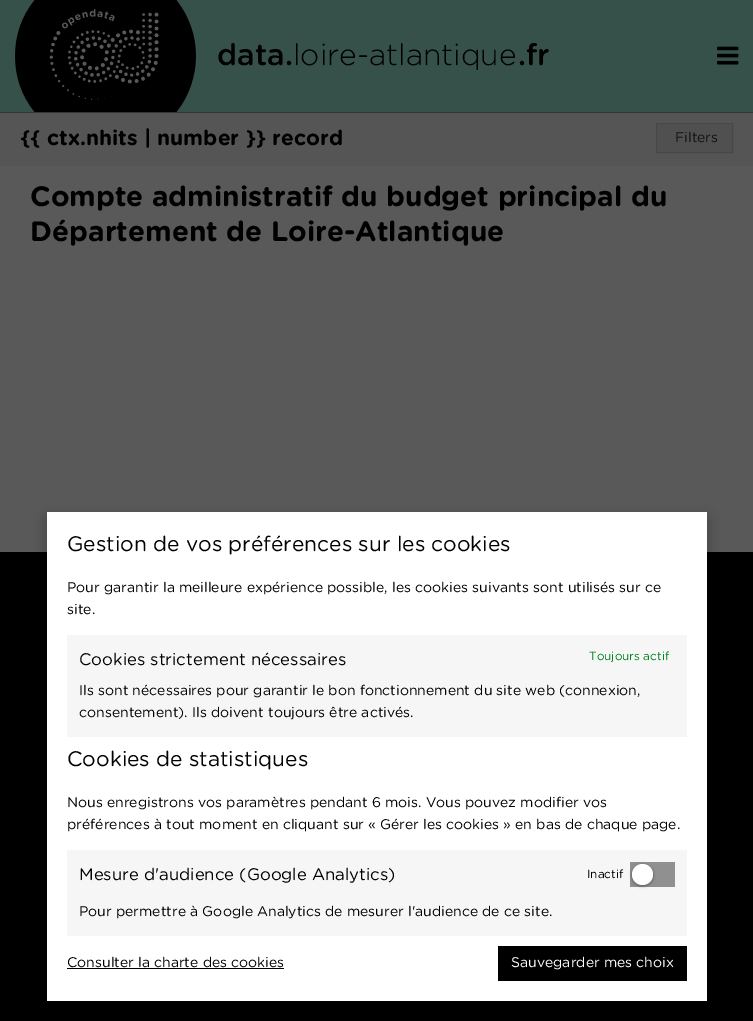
%!PS-Adobe-3.0
%%BoundingBox: 0 0 753 1021
%%LanguageLevel: 3
%%Pages: 1
%%EndComments
%%BeginProlog
/m { moveto } bind def
/l { lineto } bind def
/h { closepath } bind def
/f { fill } bind def
/S { stroke } bind def
/q { gsave } bind def
/Q { grestore } bind def
/fn { [ exch dup neg 0 0 3 -1 roll 0 0 ] selectfont } def
/tx { moveto show } def
/bx { rectfill } def
/al { dup .setfillconstantalpha .setstrokeconstantalpha } def
/ci { newpath 0 360 arc closepath } def
/rr { 5 dict begin { /r /h /w /y /x } { exch def } forall
  x r add y moveto x w add y 2 copy h add r arct x w add y h add x 1 index r arct
  x y h add x y r arct x y 2 copy exch w add exch r arct closepath end } def
/sh { 12 dict begin { /a /b /q /h /w /y /x } { exch def } forall gsave /was 0 def
  9 -2 -9 { dup b mul 4 div /e exch def 1 sub .425 mul 2.718 exch exp 1 add a .99 .min exch div /now exch def
    1 1 now sub 1 was sub div sub al /was now def
    w h .min e 2 mul add 0 gt { x e sub y e sub w e 2 mul add h e 2 mul add
      q e add b .6 mul add w h .min 2 div e add .min 0 .max rr fill } if } for grestore end } def
/im { 5 dict begin { /h /w /y /x /name } { exch def } forall
  gsave x y translate w h scale
  w h 8 [w 0 0 h 0 0] name (r) file false 3 colorimage grestore end } def
%%EndProlog
%%BeginSetup
<< /PageSize [753 1021] /PageUsesTransparency true >> setpagedevice
%%EndSetup
%%Page: 1 1
0 .pushpdf14devicefilter
0 1021 translate 1 -1 scale
4 setmiterlimit
0.349 setgray
0 0 753 1021 bx
0.212 0.318 0.286 setrgbcolor
0 0 753 112 bx
(image0.raw) 15 0 181 112 im
/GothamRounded-Medium 30 fn
0 setgray
(data.) 217 65 tx
/GothamRounded-Light 30 fn
(loire-atlantique) 293 65 tx
/GothamRounded-Medium 30 fn
(.fr) 518 65 tx
(image1.raw) 717 46 22 19 im
0.212 setgray
0 112 753 1 bx
0.333 setgray
0 113 753 53 bx
/GothamRounded-Bold 21 fn
0 setgray
({{ ctx.nhits | number }} record) 20 145 tx
0.314 setgray
656.5 123.5 m 732.5 123.5 l 732.5 152.5 l 656.5 152.5 l h q f Q
0.278 setgray
S
/GothamRounded-Regular 14 fn
0.071 setgray
(Filters) 675 142 tx
/GothamRounded-Bold 28 fn
0 setgray
(Compte administratif du budget principal du) 30 206 tx
(Département de Loire-Atlantique) 30 241 tx
0 552 753 469 bx
47 518 660 489 0 6.5 0.25 sh
1 setgray
47 512 660 489 bx
/GothamRounded-Regular 21 fn
0 setgray
(Gestion de vos préférences sur les cookies) 67 551 tx
/GothamRounded-Regular 14 fn
(Pour garantir la meilleure expérience possible, les cookies suivants sont utilisés sur ce) 67 592 tx
(site.) 67 614 tx
0.965 setgray
67 635 620 102 bx
/GothamRounded-Regular 16.75 fn
0 setgray
(Cookies strictement nécessaires) 79 665 tx
/GothamRounded-Regular 11.75 fn
0.004 0.51 0.122 setrgbcolor
(Toujours actif) 589 660 tx
/GothamRounded-Regular 14 fn
0 setgray
(Ils sont nécessaires pour garantir le bon fonctionnement du site web \(connexion,) 79 695 tx
(consentement\). Ils doivent toujours être activés.) 79 717 tx
/GothamRounded-Regular 21 fn
(Cookies de statistiques) 67 766 tx
/GothamRounded-Regular 14 fn
(Nous enregistrons vos paramètres pendant 6 mois. Vous pouvez modifier vos) 67 807 tx
(préférences à tout moment en cliquant sur « Gérer les cookies » en bas de chaque page.) 67 829 tx
0.965 setgray
67 850 620 86 bx
/GothamRounded-Regular 16.75 fn
0 setgray
(Mesure d'audience \(Google Analytics\)) 79 880 tx
/GothamRounded-Regular 11.75 fn
(Inactif) 587 878 tx
0.565 setgray
630 862 45 25 bx
0 setgray
632 865 21 21 10.5 1.5 0.4 sh
1 setgray
642.5 874.5 10.5 ci f
/GothamRounded-Regular 14 fn
0 setgray
(Pour permettre à Google Analytics de mesurer l'audience de ce site.) 79 916 tx
(Consulter la charte des cookies) 67 967 tx
67 968 217 1 bx
498 946 189 35 bx
1 setgray
(Sauvegarder mes choix) 511 967 tx
.poppdf14devicefilter showpage
%%EOF
